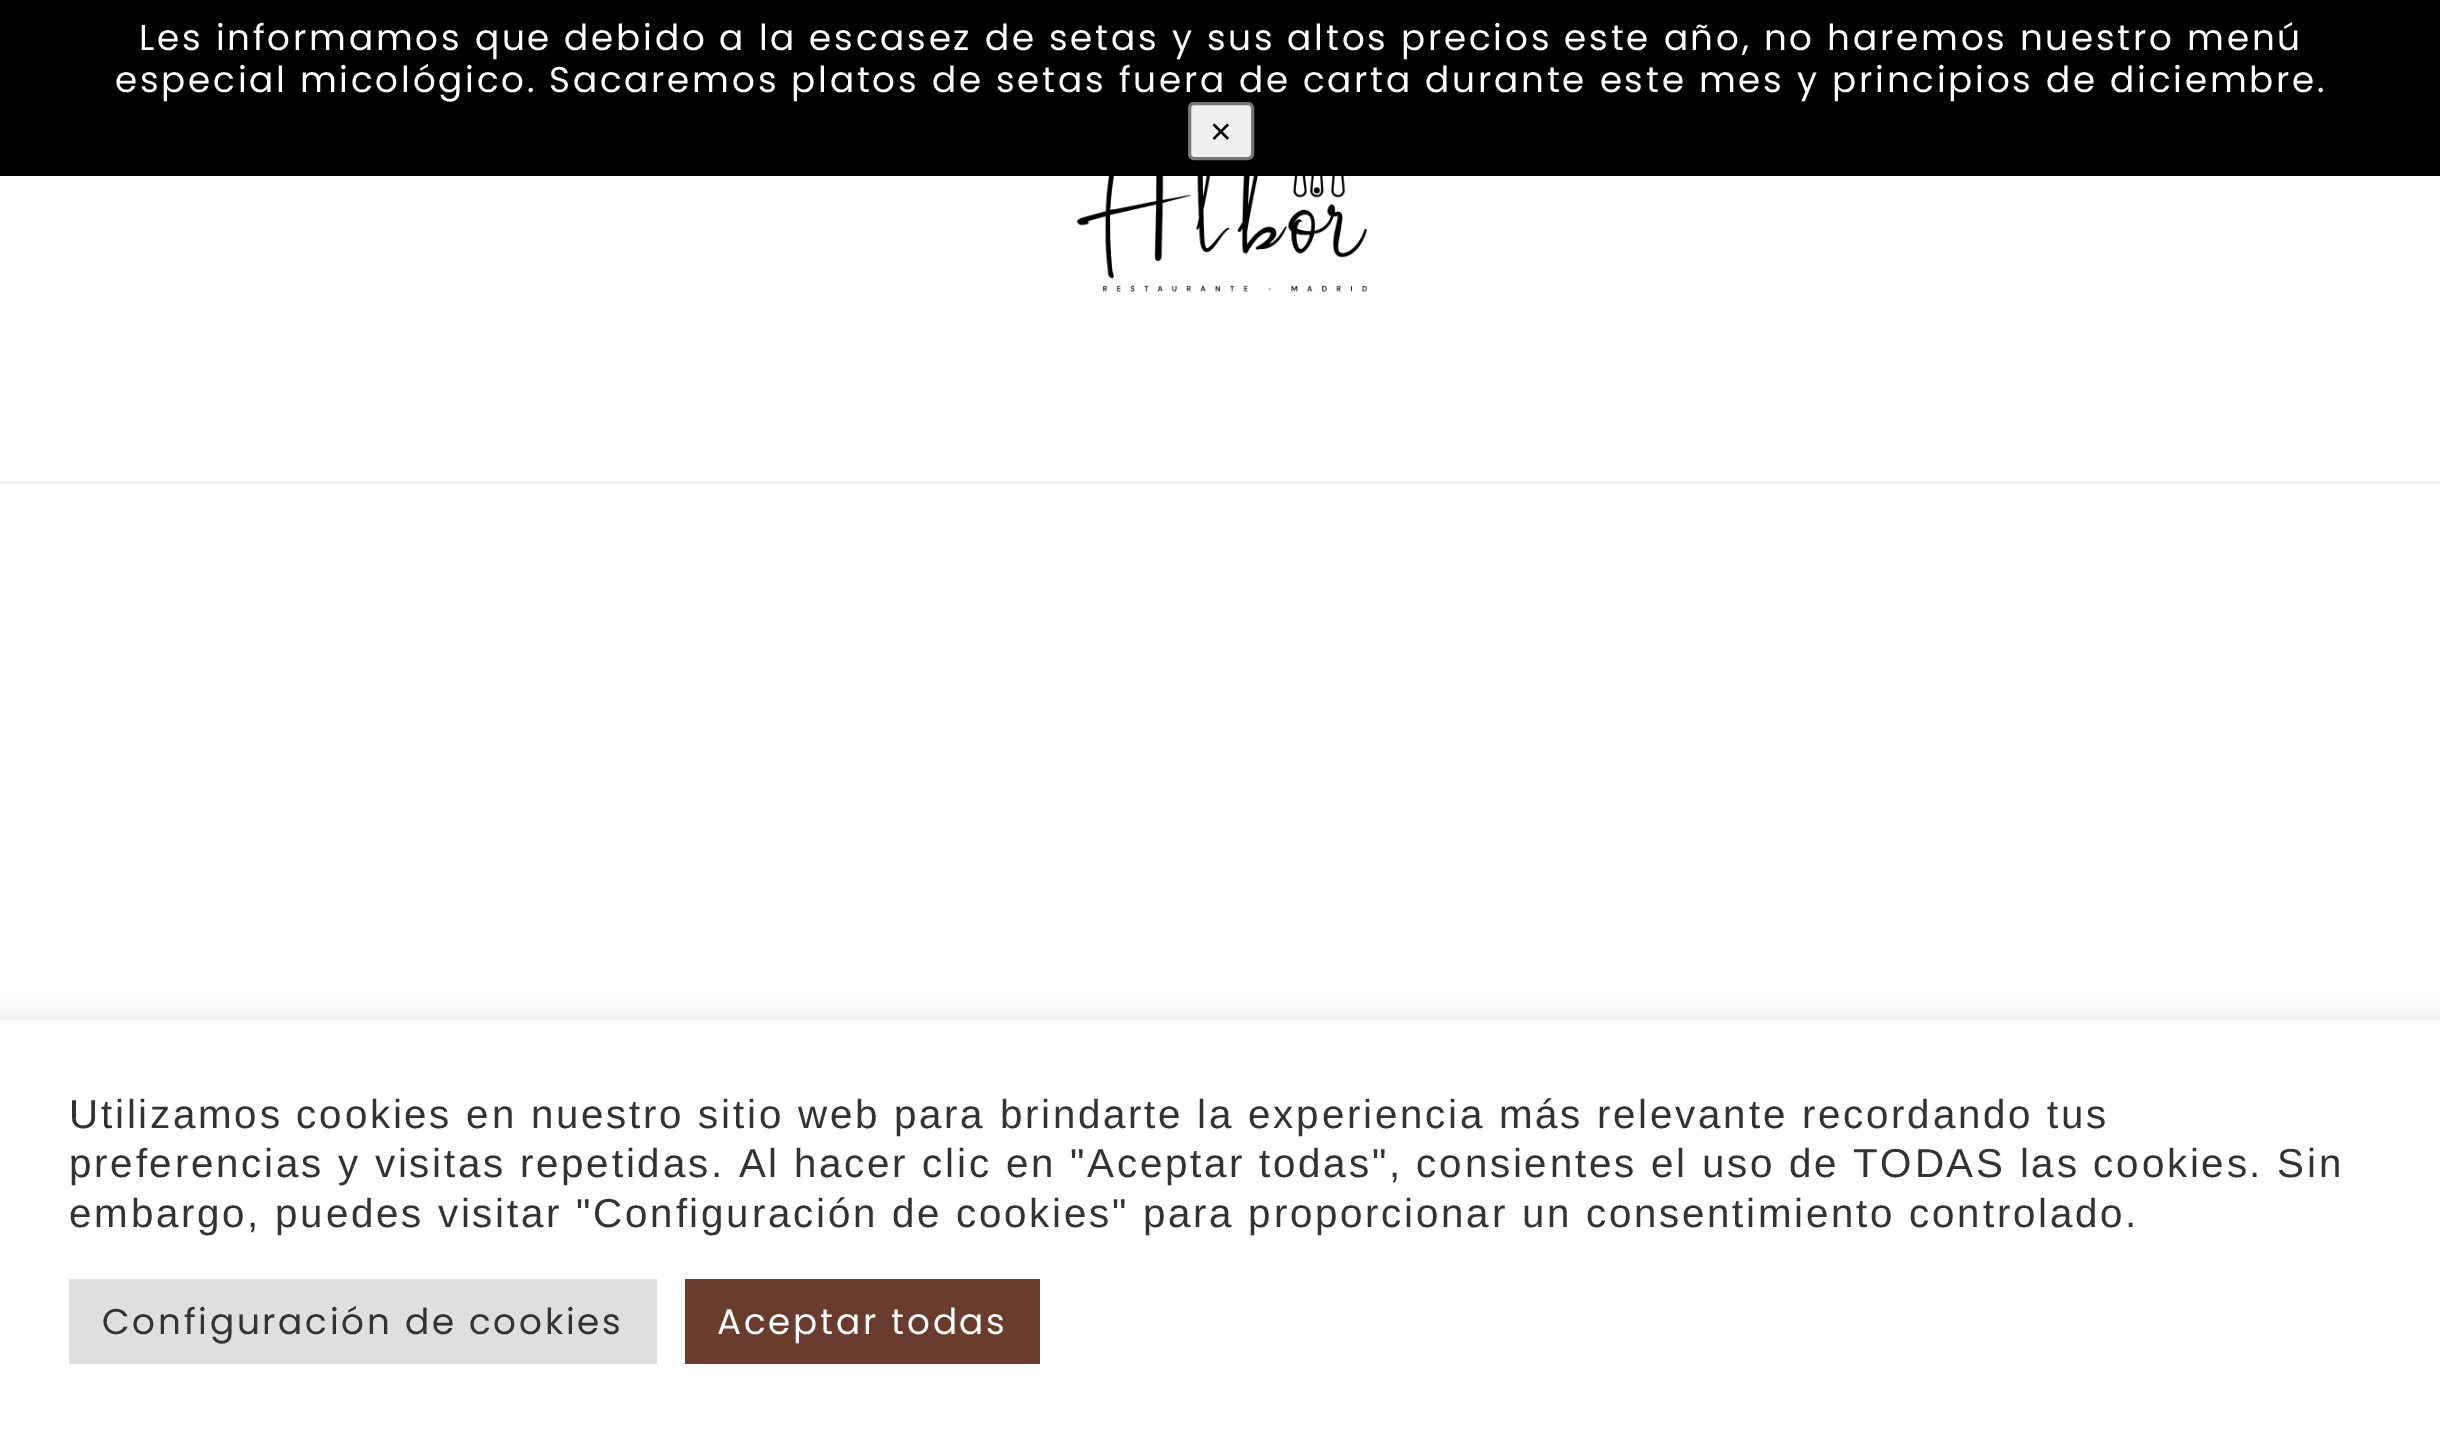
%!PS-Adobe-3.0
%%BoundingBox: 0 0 2440 1446
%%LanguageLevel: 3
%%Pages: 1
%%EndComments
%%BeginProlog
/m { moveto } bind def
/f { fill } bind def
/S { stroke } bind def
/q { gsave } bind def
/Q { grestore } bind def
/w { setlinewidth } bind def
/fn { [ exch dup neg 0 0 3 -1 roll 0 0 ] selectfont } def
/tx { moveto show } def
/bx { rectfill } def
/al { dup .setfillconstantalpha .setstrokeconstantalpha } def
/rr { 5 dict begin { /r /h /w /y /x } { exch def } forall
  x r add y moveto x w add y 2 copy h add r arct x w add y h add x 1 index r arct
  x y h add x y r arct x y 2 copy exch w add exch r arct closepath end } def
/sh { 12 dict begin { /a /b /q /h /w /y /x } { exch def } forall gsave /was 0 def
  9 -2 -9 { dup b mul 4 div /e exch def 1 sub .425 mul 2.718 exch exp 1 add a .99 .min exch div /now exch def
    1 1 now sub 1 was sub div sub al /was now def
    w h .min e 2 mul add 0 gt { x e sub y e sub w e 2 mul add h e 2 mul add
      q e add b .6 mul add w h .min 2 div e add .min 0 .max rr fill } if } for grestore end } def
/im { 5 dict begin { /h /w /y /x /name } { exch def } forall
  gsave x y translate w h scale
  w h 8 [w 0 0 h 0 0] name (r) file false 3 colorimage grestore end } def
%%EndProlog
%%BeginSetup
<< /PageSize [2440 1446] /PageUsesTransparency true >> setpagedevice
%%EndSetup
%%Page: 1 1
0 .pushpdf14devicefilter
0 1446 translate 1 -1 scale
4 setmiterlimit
1 setgray
0 0 2440 1446 bx
0 setgray
0 0 2440 176 bx
/Poppins-Regular 35.75 fn
1 setgray
139 50 m 2.75 0 (Les informamos que debido a la escasez de setas y sus altos precios este año, no haremos nuestro menú) ashow
115 92 m 2.75 0 (especial micológico. Sacaremos platos de setas fuera de carta durante este mes y principios de diciembre.) ashow
0.937 setgray
1189.5 103.5 63 55 4.5 rr q f Q
0.463 setgray
3 w
S
/LiberationSans-Regular 37 fn
0 setgray
(×) 1210 144 tx
0.945 setgray
0 481 2440 3 bx
(image0.raw) 1076 176 292 116 im
0.675 0.671 0.671 setrgbcolor
0 1018 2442 426 0 14 0.3 sh
1 setgray
0 1020 2440 426 bx
/LiberationSans-Regular 40.33 fn
0.2 setgray
69 1128 m 2.75 0 (Utilizamos cookies en nuestro sitio web para brindarte la experiencia más relevante recordando tus) ashow
69 1177 m 2.75 0 (preferencias y visitas repetidas. Al hacer clic en "Aceptar todas", consientes el uso de TODAS las cookies. Sin) ashow
69 1227 m -0.1 0 32 2.75 0 (embargo, puedes visitar "Configuración de cookies" para proporcionar un consentimiento controlado.) awidthshow
0.871 0.875 0.878 setrgbcolor
69 1279 588 85 bx
/Poppins-Regular 35.75 fn
0.2 setgray
102 1334 m 2.75 0 (Configuración de cookies) ashow
0.412 0.235 0.176 setrgbcolor
685 1279 355 85 bx
1 setgray
717 1334 m 2.75 0 (Aceptar todas) ashow
.poppdf14devicefilter showpage
%%EOF
